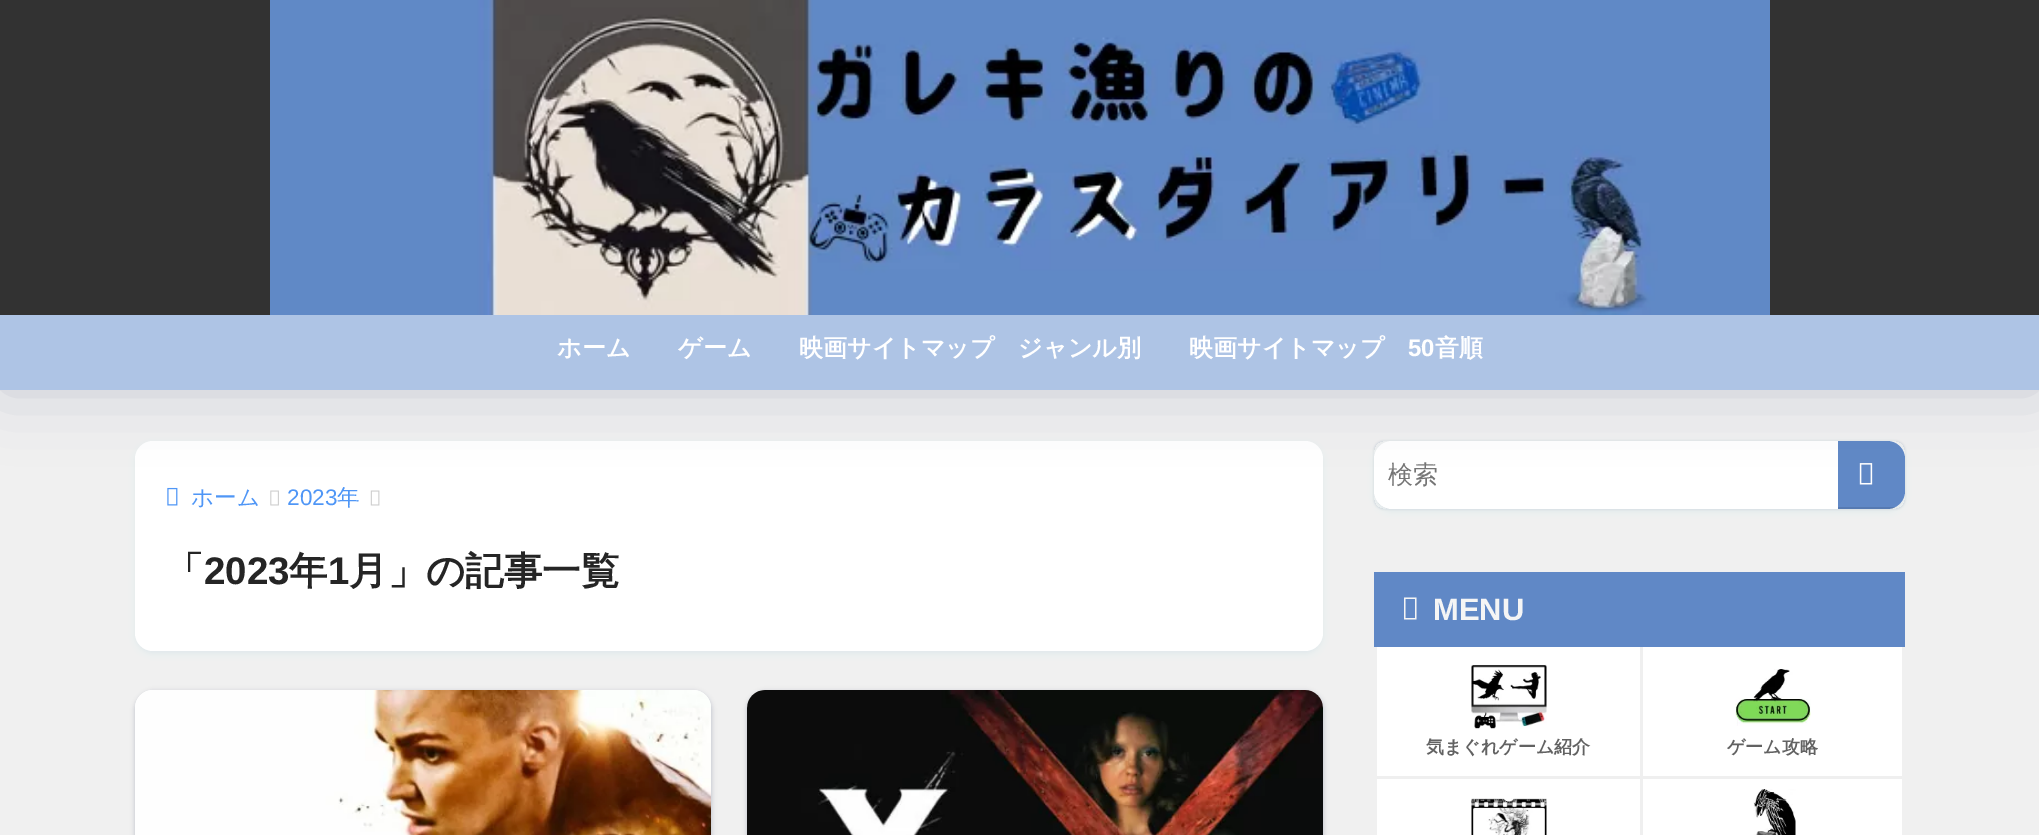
%!PS-Adobe-3.0
%%BoundingBox: 0 0 2039 835
%%LanguageLevel: 3
%%Pages: 1
%%EndComments
%%BeginProlog
/m { moveto } bind def
/l { lineto } bind def
/c { curveto } bind def
/h { closepath } bind def
/f { fill } bind def
/q { gsave } bind def
/Q { grestore } bind def
/fn { [ exch dup neg 0 0 3 -1 roll 0 0 ] selectfont } def
/tx { moveto show } def
/bx { rectfill } def
/al { dup .setfillconstantalpha .setstrokeconstantalpha } def
/rr { 5 dict begin { /r /h /w /y /x } { exch def } forall
  x r add y moveto x w add y 2 copy h add r arct x w add y h add x 1 index r arct
  x y h add x y r arct x y 2 copy exch w add exch r arct closepath end } def
/sh { 12 dict begin { /a /b /q /h /w /y /x } { exch def } forall gsave /was 0 def
  9 -2 -9 { dup b mul 4 div /e exch def 1 sub .425 mul 2.718 exch exp 1 add a .99 .min exch div /now exch def
    1 1 now sub 1 was sub div sub al /was now def
    w h .min e 2 mul add 0 gt { x e sub y e sub w e 2 mul add h e 2 mul add
      q e add b .6 mul add w h .min 2 div e add .min 0 .max rr fill } if } for grestore end } def
/im { 5 dict begin { /h /w /y /x /name } { exch def } forall
  gsave x y translate w h scale
  w h 8 [w 0 0 h 0 0] name (r) file false 3 colorimage grestore end } def
%%EndProlog
%%BeginSetup
<< /PageSize [2039 835] /PageUsesTransparency true >> setpagedevice
%%EndSetup
%%Page: 1 1
0 .pushpdf14devicefilter
0 835 translate 1 -1 scale
4 setmiterlimit
0.941 setgray
0 0 2039 835 bx
0.263 0.522 0.733 setrgbcolor
135 444 1188 210 18 3 0.07 sh
1 setgray
135 441 1188 210 18 rr f
(image1.raw) 167 487 11 19 im
(image2.raw) 270 490 9 16 im
(image3.raw) 370 490 10 16 im
0.263 0.522 0.733 setrgbcolor
1374 444 531 68 18 3 0.07 sh
q
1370 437 m 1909 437 l 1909 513 l 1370 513 l h 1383 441 m 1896 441 l 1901 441 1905 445 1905 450 c 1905 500 l 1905 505 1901 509 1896 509 c 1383 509 l 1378 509 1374 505 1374 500 c 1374 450 l 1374 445 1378 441 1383 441 c h eoclip newpath
0 0.118 0.392 setrgbcolor
1374 441 531 68 9 1 0.1 sh
Q
q
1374 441 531 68 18 rr clip newpath
0 0.047 0.259 setrgbcolor
1379 455 522 58 5 10 0.1 sh
Q
1 setgray
1374 441 531 68 18 rr f
0.376 0.533 0.776 setrgbcolor
1838 441 m 1887 441 l 1897 441 1905 449 1905 459 c 1905 491 l 1905 501 1897 509 1887 509 c 1838 509 l h f
(image6.raw) 1859 463 14 22 im
0 0.047 0.259 setrgbcolor
0 0 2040 390 0 34 0.16 sh
0.682 0.769 0.898 setrgbcolor
0 315 2039 75 bx
0.196 setgray
0 0 2039 315 bx
(image0.raw) 270 0 1500 315 im
/WenQuanYiZenHei-Bold 24 fn
1 setgray
(ホーム) 557 356 tx
(ゲーム) 678 356 tx
(映画サイトマップ　ジャンル別) 799 356 tx
(映画サイトマップ) 1189 356 tx
/LiberationSans-Bold 24 fn
(50) 1408 356 tx
/WenQuanYiZenHei-Bold 24 fn
(音順) 1435 356 tx
/WenQuanYiZenHei-Medium 22.5 fn
0.31 0.588 0.965 setrgbcolor
(ホーム) 191 505 tx
/LiberationSans-Regular 22.5 fn
(2023) 287 505 tx
/WenQuanYiZenHei-Medium 22.5 fn
(年) 337 505 tx
/WenQuanYiZenHei-Bold 38.5 fn
0.145 setgray
(「) 165 584 tx
/LiberationSans-Bold 38.5 fn
(2023) 204 584 tx
/WenQuanYiZenHei-Bold 38.5 fn
(年) 289 584 tx
/LiberationSans-Bold 38.5 fn
(1) 328 584 tx
/WenQuanYiZenHei-Bold 38.5 fn
(月」の記事一覧) 349 584 tx
0.094 0.173 0.329 setrgbcolor
134 690 579 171 20 2 0.1 sh
135 692 576 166 18 1.5 0.1 sh
(image4.raw) 135 690 576 145 im
746 690 579 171 20 2 0.1 sh
747 692 576 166 18 1.5 0.1 sh
(image5.raw) 747 690 576 145 im
/WenQuanYiZenHei-Medium 25 fn
0.459 setgray
(検索) 1388 483 tx
q
1374 441 531 68 18 rr clip newpath
0.1 al
0 setgray
1838 507 63 2 bx
Q
1 setgray
1377 647 525 188 bx
0.376 0.533 0.776 setrgbcolor
1374 572 531 75 bx
0.961 setgray
1404 619.5 m 1404 597.5 l 1416.5 597.5 l 1416.5 619.5 l h 1405.5 618 m 1415 618 l 1415 599 l 1405.5 599 l h f
/LiberationSans-Bold 31 fn
(MENU) 1433 620 tx
(image7.raw) 1471 664 76 65 im
/WenQuanYiZenHei-Bold 18 fn
0.384 setgray
(気まぐれゲーム紹介) 1426 753 tx
0.937 setgray
1640 647 3 129 bx
(image8.raw) 1735 669 76 57 im
0.384 setgray
(ゲーム攻略) 1727 753 tx
0.937 setgray
1377 776 525 3 bx
(image9.raw) 1471 798 76 37 im
1640 776 3 59 bx
(image10.raw) 1753 789 43 46 im
.poppdf14devicefilter showpage
%%EOF
